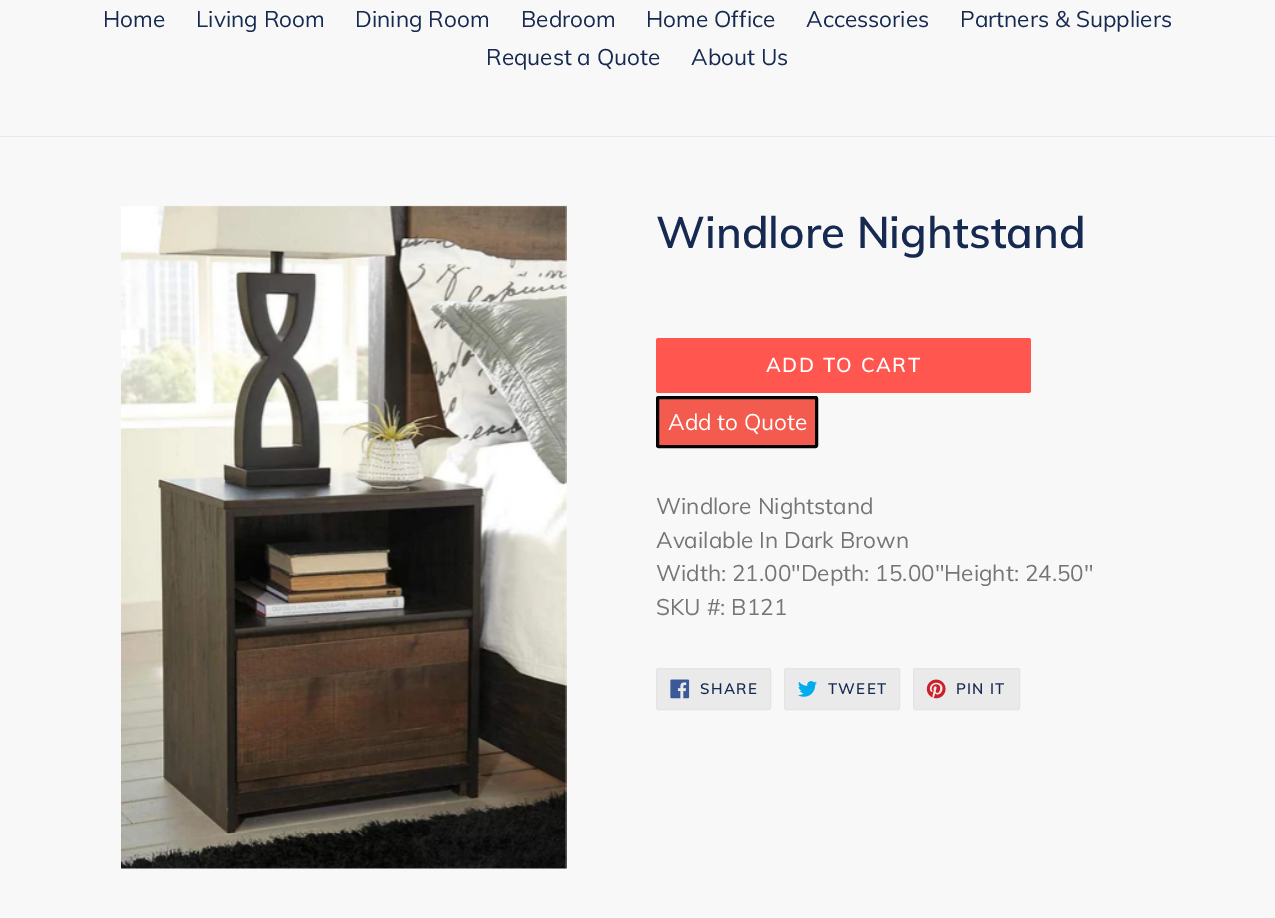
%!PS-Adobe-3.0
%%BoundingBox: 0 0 1275 918
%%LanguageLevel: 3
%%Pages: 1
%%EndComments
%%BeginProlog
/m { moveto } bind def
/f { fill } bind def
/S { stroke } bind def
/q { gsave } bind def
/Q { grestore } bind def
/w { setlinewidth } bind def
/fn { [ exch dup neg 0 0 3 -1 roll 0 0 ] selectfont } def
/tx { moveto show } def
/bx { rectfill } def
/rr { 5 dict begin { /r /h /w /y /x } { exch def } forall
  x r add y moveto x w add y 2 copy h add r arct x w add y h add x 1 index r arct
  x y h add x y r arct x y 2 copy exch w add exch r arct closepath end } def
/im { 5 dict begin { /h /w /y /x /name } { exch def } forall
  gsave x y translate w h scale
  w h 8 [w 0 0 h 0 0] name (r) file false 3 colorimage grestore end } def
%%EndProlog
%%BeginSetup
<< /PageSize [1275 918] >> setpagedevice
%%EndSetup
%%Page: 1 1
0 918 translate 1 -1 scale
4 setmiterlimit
0.973 setgray
0 0 1275 918 bx
0.91 0.914 0.922 setrgbcolor
0 136 1275 1 bx
/Muli-Regular 22.5 fn
0.086 0.161 0.314 setrgbcolor
(Home) 103 27 tx
(Living Room) 196 27 tx
(Dining Room) 355 27 tx
(Bedroom) 521 27 tx
(Home Office) 646 27 tx
(Accessories) 806 27 tx
(Partners & Suppliers) 960 27 tx
(Request a Quote) 486 65 tx
(About Us) 691 65 tx
(image0.raw) 121 205 446 664 im
/Muli-SemiBold 43.75 fn
(Windlore Nightstand) 656 248 tx
1 0.341 0.31 setrgbcolor
656 338 375 55 2.5 rr f
/Muli-SemiBold 20 fn
1 setgray
766 372 m 1.6 0 (ADD TO CART) ashow
0.957 0.357 0.31 setrgbcolor
657.5 397.5 159 49 1 rr q f Q
0 setgray
3 w
S
/Muli-Regular 22.5 fn
1 setgray
(Add to Quote) 668 430 tx
0.459 setgray
(Windlore Nightstand) 656 514 tx
(Available In Dark Brown) 656 548 tx
(Width: 21.00"Depth: 15.00"Height: 24.50") 656 581 tx
(SKU #: B121) 656 615 tx
0.918 setgray
656.5 668.5 114 41 2 rr q f Q
0.894 setgray
1 w
S
(image1.raw) 670 679 20 20 im
/Muli-SemiBold 15 fn
0.086 0.161 0.314 setrgbcolor
700 694 m 1.25 0 (SHARE) ashow
0.918 setgray
784.5 668.5 115 41 2 rr q f Q
0.894 setgray
S
(image2.raw) 798 681 19 16 im
0.086 0.161 0.314 setrgbcolor
828 694 m 1.25 0 (TWEET) ashow
0.918 setgray
913.5 668.5 106 41 2 rr q f Q
0.894 setgray
S
(image3.raw) 926 679 20 20 im
0.086 0.161 0.314 setrgbcolor
956 694 m 1.25 0 (PIN IT) ashow
showpage
%%EOF
